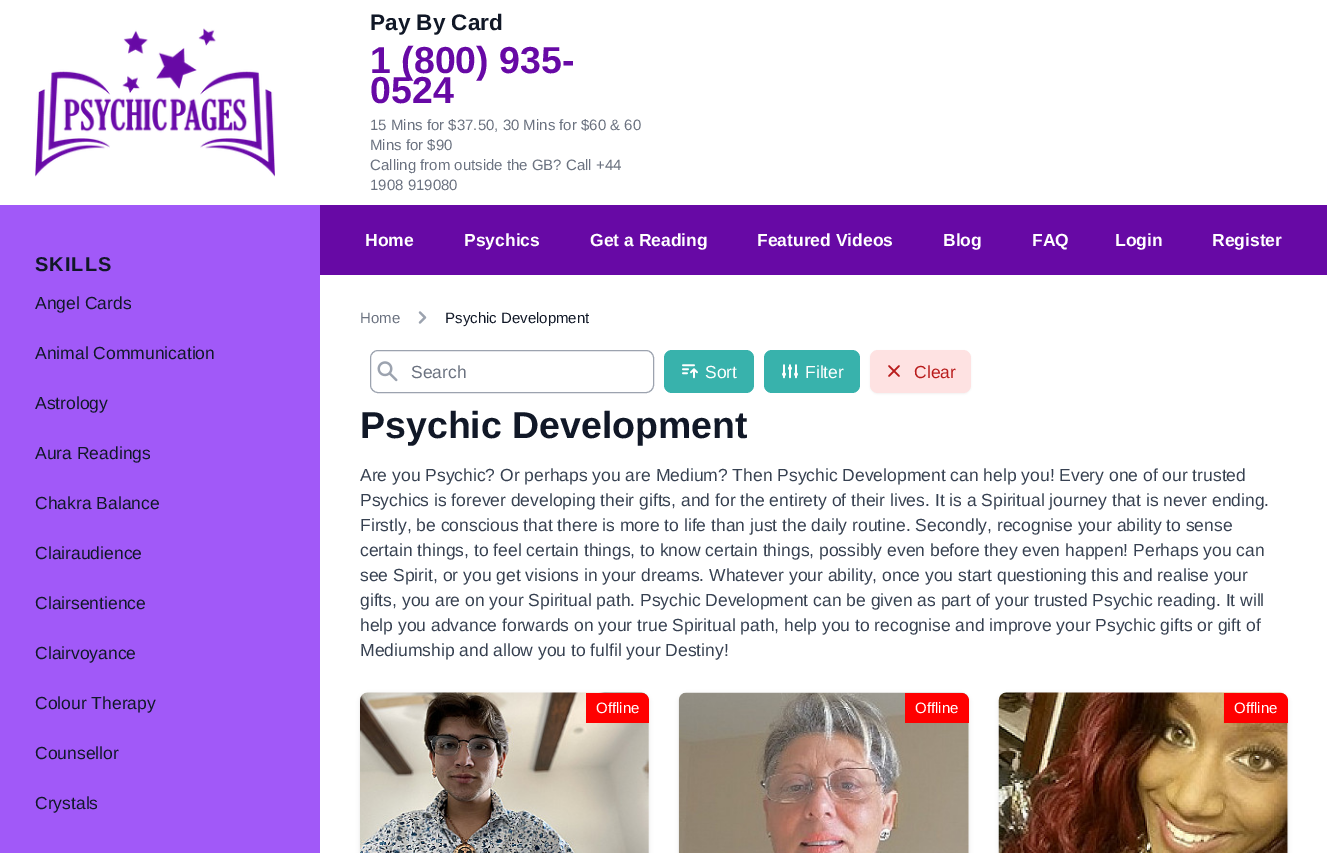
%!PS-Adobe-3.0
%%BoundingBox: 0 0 1327 853
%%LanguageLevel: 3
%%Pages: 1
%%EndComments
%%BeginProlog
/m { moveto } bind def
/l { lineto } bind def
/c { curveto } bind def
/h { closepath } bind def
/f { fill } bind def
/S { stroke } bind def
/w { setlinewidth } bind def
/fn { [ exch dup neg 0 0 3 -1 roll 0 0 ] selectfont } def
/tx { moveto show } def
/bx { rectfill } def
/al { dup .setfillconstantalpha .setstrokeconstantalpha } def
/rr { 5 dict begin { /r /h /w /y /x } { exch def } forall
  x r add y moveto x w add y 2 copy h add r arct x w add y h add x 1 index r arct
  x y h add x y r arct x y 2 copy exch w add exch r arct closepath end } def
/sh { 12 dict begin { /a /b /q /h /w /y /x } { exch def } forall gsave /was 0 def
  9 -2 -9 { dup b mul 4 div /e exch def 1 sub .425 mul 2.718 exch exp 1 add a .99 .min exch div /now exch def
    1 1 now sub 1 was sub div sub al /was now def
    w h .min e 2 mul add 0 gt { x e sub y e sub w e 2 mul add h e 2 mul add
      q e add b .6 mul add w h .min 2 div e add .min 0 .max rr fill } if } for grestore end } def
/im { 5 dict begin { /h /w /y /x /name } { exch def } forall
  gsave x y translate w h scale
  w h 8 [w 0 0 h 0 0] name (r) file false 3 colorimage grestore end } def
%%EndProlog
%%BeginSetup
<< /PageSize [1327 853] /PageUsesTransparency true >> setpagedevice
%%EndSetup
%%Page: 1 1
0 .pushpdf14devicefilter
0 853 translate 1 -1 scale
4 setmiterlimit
1 setgray
0 0 1327 853 bx
(image0.raw) 35 28 240 149 im
/LiberationSans-Bold 22.5 fn
0.067 0.094 0.153 setrgbcolor
(Pay By Card) 370 30 tx
/LiberationSans-Bold 37.5 fn
0.404 0.035 0.647 setrgbcolor
(1 \(800\) 935-) 370 73 tx
(0524) 370 103 tx
/LiberationSans-Regular 15 fn
0.42 0.447 0.502 setrgbcolor
(15 Mins for $37.50, 30 Mins for $60 & 60) 370 130 tx
(Mins for $90) 370 150 tx
(Calling from outside the GB? Call +44) 370 170 tx
(1908 919080) 370 190 tx
0.631 0.349 0.973 setrgbcolor
0 205 320 648 bx
/LiberationSans-Bold 20 fn
0.067 0.094 0.153 setrgbcolor
35 271 m 1 0 (SKILLS) ashow
/LiberationSans-Regular 17.5 fn
(Angel Cards) 35 309 tx
(Animal Communication) 35 359 tx
(Astrology) 35 409 tx
(Aura Readings) 35 459 tx
(Chakra Balance) 35 509 tx
(Clairaudience) 35 559 tx
(Clairsentience) 35 609 tx
(Clairvoyance) 35 659 tx
(Colour Therapy) 35 709 tx
(Counsellor) 35 759 tx
(Crystals) 35 809 tx
0.404 0.035 0.647 setrgbcolor
320 205 1007 70 bx
/LiberationSans-Bold 17.5 fn
1 setgray
(Home) 365 246 tx
(Psychics) 464 246 tx
(Get a Reading) 590 246 tx
(Featured Videos) 757 246 tx
(Blog) 943 246 tx
(FAQ) 1032 246 tx
(Login) 1115 246 tx
(Register) 1212 246 tx
/LiberationSans-Regular 15 fn
0.42 0.447 0.502 setrgbcolor
(Home) 360 323 tx
(image1.raw) 418 311 9 13 im
0.067 0.094 0.153 setrgbcolor
(Psychic Development) 445 323 tx
0.612 0.639 0.686 setrgbcolor
370.5 350.5 283 42 7.5 rr S
(image2.raw) 377 361 21 21 im
/LiberationSans-Regular 17.5 fn
0.42 0.447 0.502 setrgbcolor
(Search) 411 378 tx
0.22 0.698 0.675 setrgbcolor
664 350 90 43 8 rr f
(image3.raw) 682 364 16 15 im
1 setgray
(Sort) 705 378 tx
0.22 0.698 0.675 setrgbcolor
764 350 96 43 8 rr f
(image4.raw) 782 364 16 15 im
1 setgray
(Filter) 805 378 tx
0 setgray
870 351 101 43 8 1 0.05 sh
0.996 0.886 0.886 setrgbcolor
870 350 101 43 8 rr f
0.725 0.11 0.11 setrgbcolor
1.7 w
1 setlinecap
1 setlinejoin
889 376 m 899 366 l 889 366 m 899 376 l S
(Clear) 914 378 tx
/LiberationSans-Bold 37.5 fn
0.067 0.094 0.153 setrgbcolor
(Psychic Development) 360 438 tx
/LiberationSans-Regular 17.5 fn
0.216 0.255 0.318 setrgbcolor
(Are you Psychic? Or perhaps you are Medium? Then Psychic Development can help you! Every one of our trusted) 360 481 tx
(Psychics is forever developing their gifts, and for the entirety of their lives. It is a Spiritual journey that is never ending.) 360 506 tx
(Firstly, be conscious that there is more to life than just the daily routine. Secondly, recognise your ability to sense) 360 531 tx
(certain things, to feel certain things, to know certain things, possibly even before they even happen! Perhaps you can) 360 556 tx
(see Spirit, or you get visions in your dreams. Whatever your ability, once you start questioning this and realise your) 360 581 tx
(gifts, you are on your Spiritual path. Psychic Development can be given as part of your trusted Psychic reading. It will) 360 606 tx
(help you advance forwards on your true Spiritual path, help you to recognise and improve your Psychic gifts or gift of) 360 631 tx
(Mediumship and allow you to fulfil your Destiny!) 360 656 tx
0 setgray
360 694 289 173 8 2 0.1 sh
(image5.raw) 360 692 289 161 im
1 0 0 setrgbcolor
586 693 m 641 693 l 645.5 693 649 696.5 649 701 c 649 723 l 586 723 l h f
/LiberationSans-Regular 15 fn
1 setgray
(Offline) 596 713 tx
0 setgray
679 694 290 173 8 2 0.1 sh
1 setgray
679 693 290 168 8 rr f
(image6.raw) 678 692 291 161 im
1 0 0 setrgbcolor
905 693 m 961 693 l 965.5 693 969 696.5 969 701 c 969 723 l 905 723 l h f
1 setgray
(Offline) 915 713 tx
0 setgray
999 694 289 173 8 2 0.1 sh
1 setgray
999 693 289 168 8 rr f
(image7.raw) 998 692 290 161 im
1 0 0 setrgbcolor
1224 693 m 1280 693 l 1284.5 693 1288 696.5 1288 701 c 1288 723 l 1224 723 l h f
1 setgray
(Offline) 1234 713 tx
.poppdf14devicefilter showpage
%%EOF
